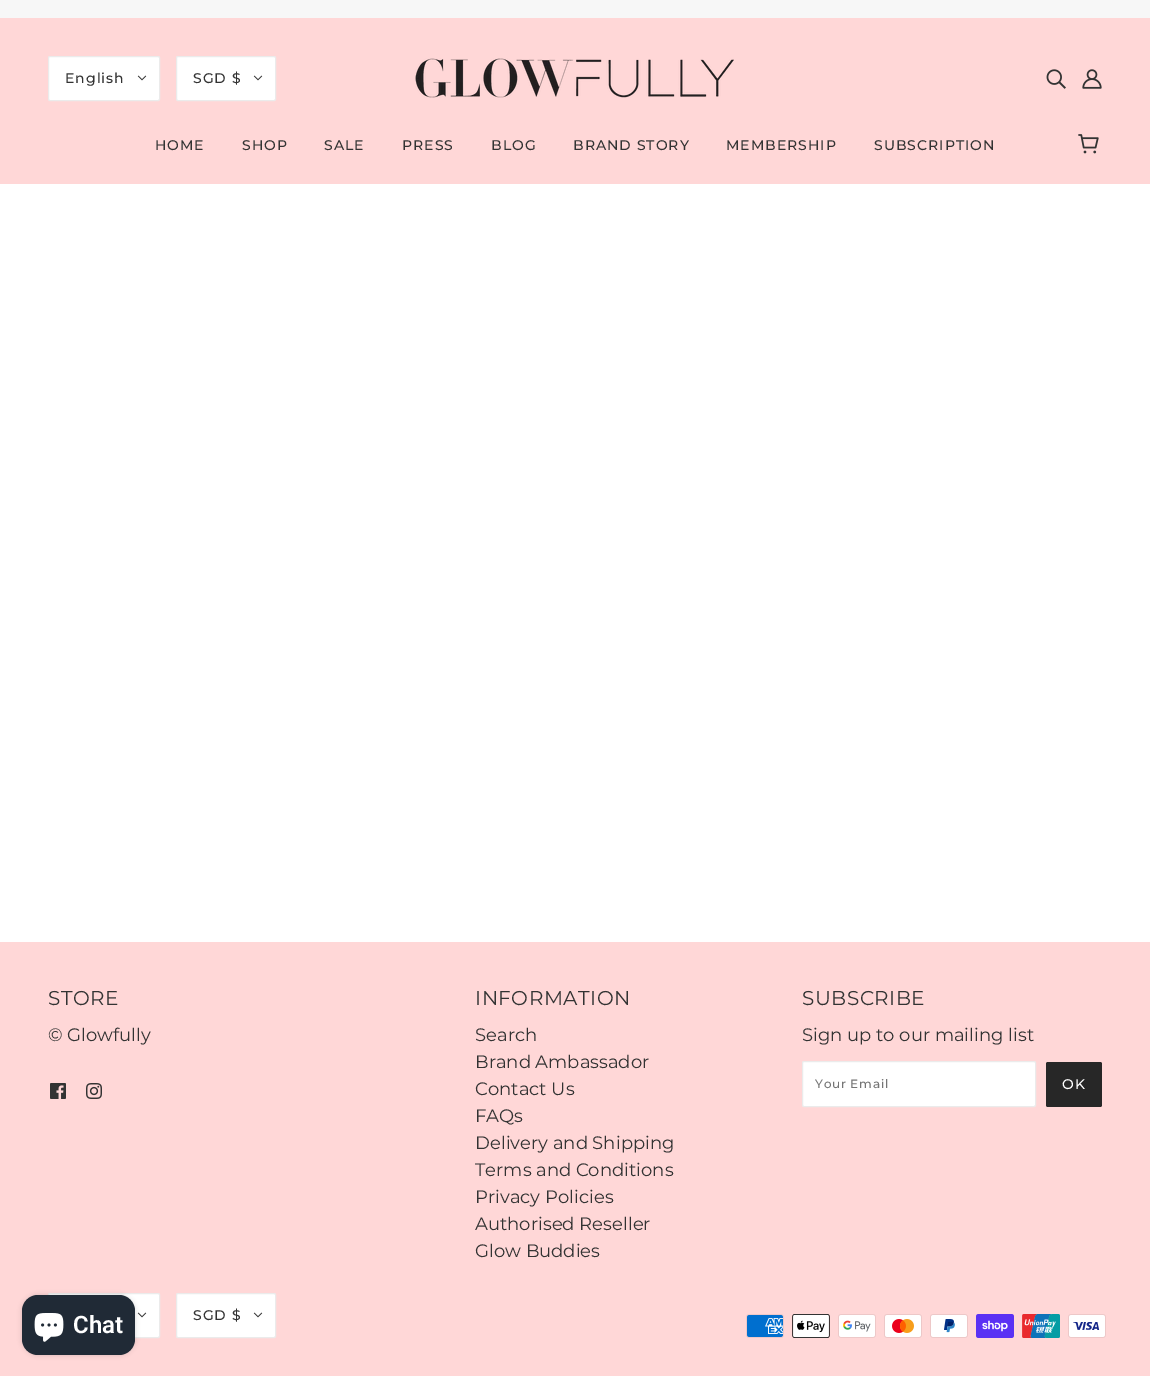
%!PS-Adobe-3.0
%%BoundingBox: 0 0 1150 1376
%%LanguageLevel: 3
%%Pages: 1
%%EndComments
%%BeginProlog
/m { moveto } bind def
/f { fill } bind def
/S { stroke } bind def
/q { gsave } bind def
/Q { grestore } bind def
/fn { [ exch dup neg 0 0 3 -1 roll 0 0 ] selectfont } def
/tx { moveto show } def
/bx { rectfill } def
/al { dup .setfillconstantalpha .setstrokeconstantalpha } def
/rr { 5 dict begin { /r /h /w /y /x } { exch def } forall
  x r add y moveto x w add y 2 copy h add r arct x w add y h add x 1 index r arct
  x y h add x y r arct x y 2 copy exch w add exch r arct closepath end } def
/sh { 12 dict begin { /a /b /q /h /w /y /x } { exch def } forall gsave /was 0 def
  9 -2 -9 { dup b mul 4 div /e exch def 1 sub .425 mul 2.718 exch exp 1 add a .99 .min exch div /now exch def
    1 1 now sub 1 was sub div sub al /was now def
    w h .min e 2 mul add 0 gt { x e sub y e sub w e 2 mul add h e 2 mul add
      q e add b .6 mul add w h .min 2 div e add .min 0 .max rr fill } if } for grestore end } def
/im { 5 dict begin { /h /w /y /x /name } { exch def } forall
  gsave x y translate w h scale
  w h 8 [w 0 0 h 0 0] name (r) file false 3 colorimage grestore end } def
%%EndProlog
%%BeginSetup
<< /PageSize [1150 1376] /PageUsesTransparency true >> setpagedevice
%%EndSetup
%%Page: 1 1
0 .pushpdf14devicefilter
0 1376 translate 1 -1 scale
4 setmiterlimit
1 setgray
0 0 1150 1376 bx
0.969 setgray
0 0 1150 18 bx
1 0.843 0.843 setrgbcolor
0 18 1150 166 bx
1 setgray
48.5 56.5 111 44 1.5 rr q f Q
0.922 setgray
S
/Montserrat-Medium 14 fn
0.2 setgray
65 83 m 1 0 (English) ashow
(image0.raw) 137 75 10 6 im
1 setgray
176.5 56.5 99 44 1.5 rr q f Q
0.922 setgray
S
0.2 setgray
193 83 m 1 0 (SGD $) ashow
(image0.raw) 253 75 10 6 im
(image1.raw) 415 58 319 40 im
(image2.raw) 1046 69 20 20 im
(image3.raw) 1082 69 20 20 im
155 150 m 1 0 (HOME) ashow
242 150 m 1 0 (SHOP) ashow
324 150 m 1 0 (SALE) ashow
402 150 m 1 0 (PRESS) ashow
491 150 m 1 0 (BLOG) ashow
573 150 m 1 0 (BRAND STORY) ashow
726 150 m 1 0 (MEMBERSHIP) ashow
874 150 m 1 0 (SUBSCRIPTION) ashow
(image4.raw) 1078 134 21 20 im
1 0.843 0.843 setrgbcolor
0 942 1150 434 bx
/Montserrat-Regular 20 fn
0.2 setgray
48 1005 m 0.5 0 (STORE) ashow
/Montserrat-Regular 18 fn
(© Glowfully) 48 1041 tx
(image5.raw) 50 1083 16 16 im
(image6.raw) 86 1083 16 16 im
/Montserrat-Regular 20 fn
475 1005 m 0.5 0 (INFORMATION) ashow
/Montserrat-Regular 18 fn
(Search) 475 1041 tx
(Brand Ambassador) 475 1068 tx
(Contact Us) 475 1095 tx
(FAQs) 475 1122 tx
(Delivery and Shipping) 475 1149 tx
(Terms and Conditions) 475 1176 tx
(Privacy Policies) 475 1203 tx
(Authorised Reseller) 475 1230 tx
(Glow Buddies) 475 1257 tx
/Montserrat-Regular 20 fn
802 1005 m 0.5 0 (SUBSCRIBE) ashow
/Montserrat-Regular 18 fn
(Sign up to our mailing list) 802 1041 tx
1 setgray
802.5 1061.5 233 45 1.5 rr q f Q
0.922 setgray
S
/Montserrat-Medium 12 fn
0.459 setgray
815 1088 m 0.75 0 (Your Email) ashow
0.153 setgray
1046 1062 56 45 2 rr f
/Montserrat-Medium 14 fn
1 setgray
1062 1089 m 1 0 (OK) ashow
48.5 1293.5 111 44 1.5 rr q f Q
0.922 setgray
S
(image0.raw) 137 1312 10 6 im
1 setgray
176.5 1293.5 99 44 1.5 rr q f Q
0.922 setgray
S
0.2 setgray
193 1320 m 1 0 (SGD $) ashow
(image0.raw) 253 1312 10 6 im
(image7.raw) 746 1314 38 24 im
(image8.raw) 792 1314 38 24 im
(image9.raw) 838 1314 38 24 im
(image10.raw) 884 1314 38 24 im
(image11.raw) 930 1314 38 24 im
(image12.raw) 976 1314 38 24 im
(image13.raw) 1022 1314 38 24 im
(image14.raw) 1068 1314 38 24 im
0 setgray
22 1295 113 60 16 2.5 0.15 sh
0.125 0.165 0.212 setrgbcolor
22 1295 113 60 16 rr f
(image15.raw) 34 1313 30 29 im
/Roboto-SemiBold 24 fn
1 setgray
(Chat) 73 1333 tx
.poppdf14devicefilter showpage
%%EOF
